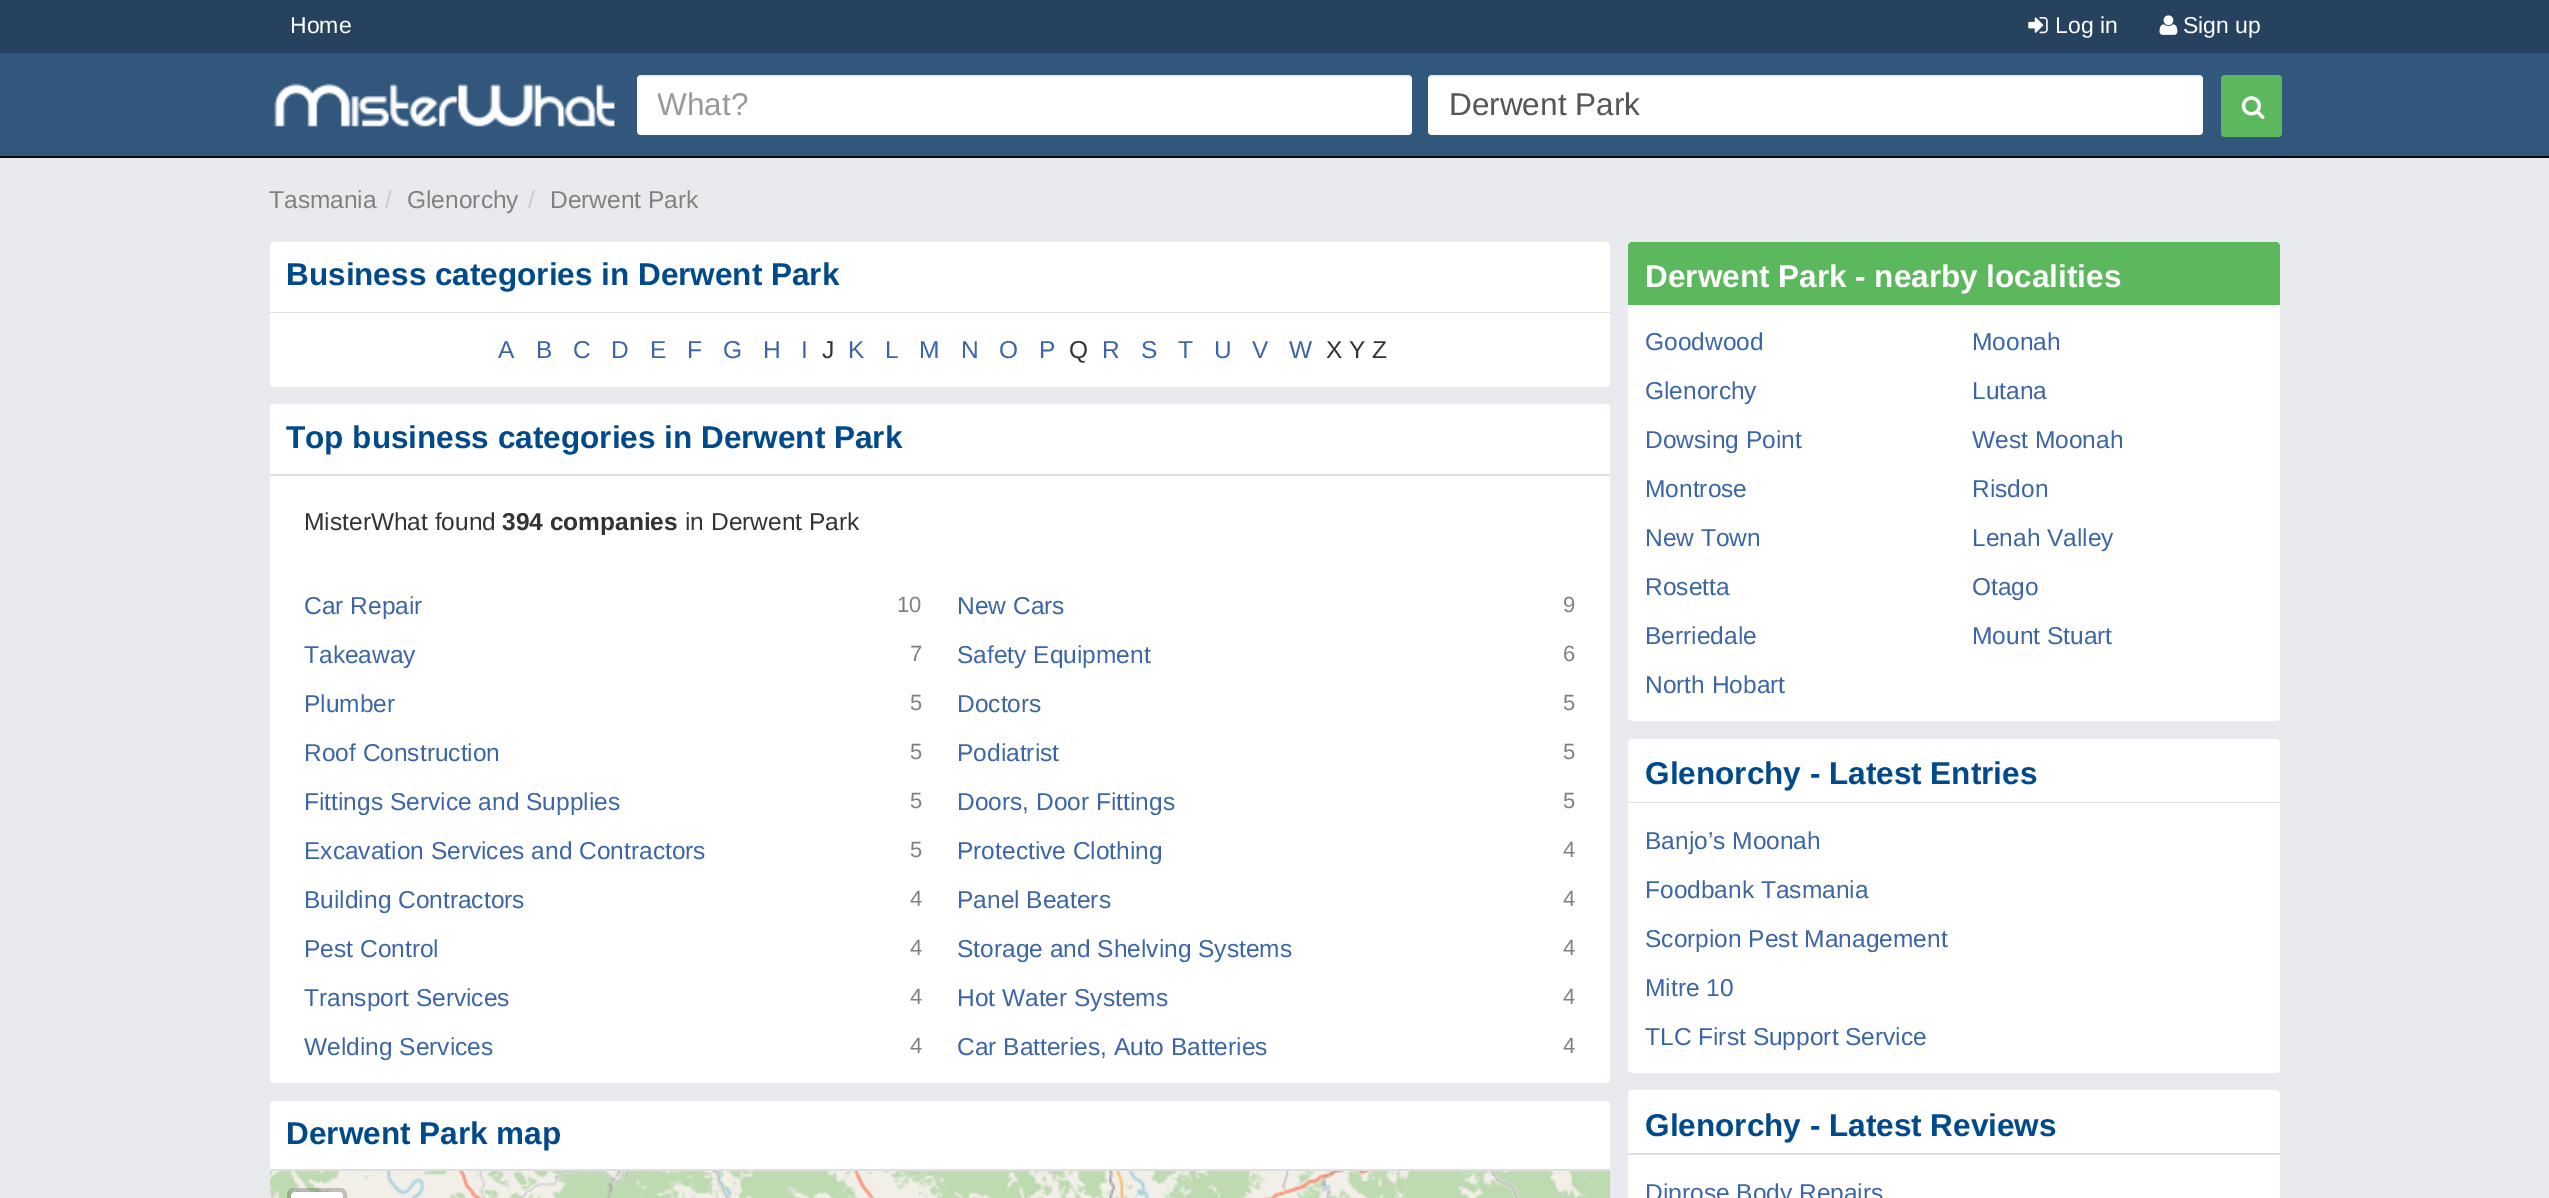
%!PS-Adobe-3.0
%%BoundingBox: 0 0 2549 1198
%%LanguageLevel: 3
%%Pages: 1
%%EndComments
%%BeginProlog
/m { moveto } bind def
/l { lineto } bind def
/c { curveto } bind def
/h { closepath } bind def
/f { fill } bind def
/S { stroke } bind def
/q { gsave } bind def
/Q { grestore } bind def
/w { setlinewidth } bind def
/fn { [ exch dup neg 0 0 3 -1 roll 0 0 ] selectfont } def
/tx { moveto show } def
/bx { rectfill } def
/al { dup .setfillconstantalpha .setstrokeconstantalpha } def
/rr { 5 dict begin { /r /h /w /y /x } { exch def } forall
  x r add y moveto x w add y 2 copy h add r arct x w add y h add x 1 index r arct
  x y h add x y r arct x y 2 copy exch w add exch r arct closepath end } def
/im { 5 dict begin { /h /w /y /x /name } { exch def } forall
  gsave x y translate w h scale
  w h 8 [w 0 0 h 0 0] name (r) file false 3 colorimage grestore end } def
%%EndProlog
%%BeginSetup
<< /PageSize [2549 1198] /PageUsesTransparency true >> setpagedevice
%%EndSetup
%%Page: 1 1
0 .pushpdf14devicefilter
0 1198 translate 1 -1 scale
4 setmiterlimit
0.914 0.918 0.933 setrgbcolor
0 0 2549 1198 bx
0.192 0.341 0.49 setrgbcolor
0 53 2549 103 bx
0.031 setgray
0 156 2549 2 bx
0.149 0.259 0.369 setrgbcolor
0 0 2549 53 bx
/LiberationSans-Regular 23 fn
1 setgray
(Home) 290 33 tx
(image0.raw) 2028 17 20 17 im
(Log in) 2055 33 tx
(image1.raw) 2159 15 19 20 im
(Sign up) 2183 33 tx
(image2.raw) 274 83 341 44 im
637 75 775 60 4 rr f
0.07 al
0 setgray
640 77 m 1409 77 l 1411 77 1412 79 1412 80 c 1412 79 l 1412 77 1410 75 1408 75 c 641 75 l 639 75 637 77 637 79 c 637 80 l 637 79 639 77 640 77 c h f
q
658 88 733 36 rectclip
/LiberationSans-Regular 31.5 fn
1 al
0.6 setgray
(What?) 657 115 tx
Q
1 al
1 setgray
1428 75 775 60 4 rr f
0.07 al
0 setgray
1432 77 m 2200 77 l 2202 77 2203 79 2203 80 c 2203 79 l 2203 77 2201 75 2199 75 c 1432 75 l 1430 75 1428 77 1428 79 c 1428 80 l 1428 79 1430 77 1432 77 c h f
/LiberationSans-Regular 31.5 fn
1 al
0.333 setgray
(Derwent Park) 1449 115 tx
0.361 0.722 0.361 setrgbcolor
2221 75 61 62 4 rr f
(image3.raw) 2241 96 24 23 im
/LiberationSans-Regular 24.5 fn
0.502 setgray
(Tasmania) 269 208 tx
0.8 setgray
(/) 385 208 tx
0.502 setgray
(Glenorchy) 407 208 tx
0.8 setgray
(/) 528 208 tx
0.502 setgray
(Derwent Park) 550 208 tx
1 setgray
274 242 m 1606 242 l 1608 242 1610 244 1610 246 c 1610 313 l 270 313 l 270 246 l 270 244 272 242 274 242 c h f
0.875 setgray
270 312 1340 1 bx
/LiberationSans-Bold 31.5 fn
0 0.29 0.545 setrgbcolor
(Business categories in Derwent Park) 286 285 tx
1 setgray
270 313 m 1610 313 l 1610 383 l 1610 385 1608 387 1606 387 c 274 387 l 272 387 270 385 270 383 c h f
/LiberationSans-Regular 24.5 fn
0.231 0.396 0.651 setrgbcolor
(A) 498 358 tx
(B) 536 358 tx
(C) 573 358 tx
(D) 611 358 tx
(E) 650 358 tx
(F) 687 358 tx
(G) 723 358 tx
(H) 763 358 tx
(I) 801 358 tx
0.2 setgray
(J) 822 358 tx
0.231 0.396 0.651 setrgbcolor
(K) 848 358 tx
(L) 885 358 tx
(M) 919 358 tx
(N) 961 358 tx
(O) 999 358 tx
(P) 1039 358 tx
0.2 setgray
(Q) 1069 358 tx
0.231 0.396 0.651 setrgbcolor
(R) 1102 358 tx
(S) 1141 358 tx
(T) 1178 358 tx
(U) 1214 358 tx
(V) 1252 358 tx
(W) 1289 358 tx
0.2 setgray
(X Y Z) 1326 358 tx
1 setgray
274 404 m 1606 404 l 1608 404 1610 406 1610 408 c 1610 476 l 270 476 l 270 408 l 270 406 272 404 274 404 c h f
0.875 setgray
270 474 1340 2 bx
/LiberationSans-Bold 31.5 fn
0 0.29 0.545 setrgbcolor
(Top business categories in Derwent Park) 286 448 tx
1 setgray
270 476 m 1610 476 l 1610 1079 l 1610 1081 1608 1083 1606 1083 c 274 1083 l 272 1083 270 1081 270 1079 c h f
/LiberationSans-Regular 24.5 fn
0.2 setgray
(MisterWhat found) 304 530 tx
/LiberationSans-Bold 24.5 fn
(394 companies) 502 530 tx
/LiberationSans-Regular 24.5 fn
(in Derwent Park) 685 530 tx
0.231 0.396 0.651 setrgbcolor
(Car Repair) 304 614 tx
/LiberationSans-Regular 22 fn
0.502 setgray
(10) 897 612 tx
/LiberationSans-Regular 24.5 fn
0.231 0.396 0.651 setrgbcolor
(New Cars) 957 614 tx
/LiberationSans-Regular 22 fn
0.502 setgray
(9) 1563 612 tx
/LiberationSans-Regular 24.5 fn
0.231 0.396 0.651 setrgbcolor
(Takeaway) 304 663 tx
/LiberationSans-Regular 22 fn
0.502 setgray
(7) 910 661 tx
/LiberationSans-Regular 24.5 fn
0.231 0.396 0.651 setrgbcolor
(Safety Equipment) 957 663 tx
/LiberationSans-Regular 22 fn
0.502 setgray
(6) 1563 661 tx
/LiberationSans-Regular 24.5 fn
0.231 0.396 0.651 setrgbcolor
(Plumber) 304 712 tx
/LiberationSans-Regular 22 fn
0.502 setgray
(5) 910 710 tx
/LiberationSans-Regular 24.5 fn
0.231 0.396 0.651 setrgbcolor
(Doctors) 957 712 tx
/LiberationSans-Regular 22 fn
0.502 setgray
(5) 1563 710 tx
/LiberationSans-Regular 24.5 fn
0.231 0.396 0.651 setrgbcolor
(Roof Construction) 304 761 tx
/LiberationSans-Regular 22 fn
0.502 setgray
(5) 910 759 tx
/LiberationSans-Regular 24.5 fn
0.231 0.396 0.651 setrgbcolor
(Podiatrist) 957 761 tx
/LiberationSans-Regular 22 fn
0.502 setgray
(5) 1563 759 tx
/LiberationSans-Regular 24.5 fn
0.231 0.396 0.651 setrgbcolor
(Fittings Service and Supplies) 304 810 tx
/LiberationSans-Regular 22 fn
0.502 setgray
(5) 910 808 tx
/LiberationSans-Regular 24.5 fn
0.231 0.396 0.651 setrgbcolor
(Doors, Door Fittings) 957 810 tx
/LiberationSans-Regular 22 fn
0.502 setgray
(5) 1563 808 tx
/LiberationSans-Regular 24.5 fn
0.231 0.396 0.651 setrgbcolor
(Excavation Services and Contractors) 304 859 tx
/LiberationSans-Regular 22 fn
0.502 setgray
(5) 910 857 tx
/LiberationSans-Regular 24.5 fn
0.231 0.396 0.651 setrgbcolor
(Protective Clothing) 957 859 tx
/LiberationSans-Regular 22 fn
0.502 setgray
(4) 1563 857 tx
/LiberationSans-Regular 24.5 fn
0.231 0.396 0.651 setrgbcolor
(Building Contractors) 304 908 tx
/LiberationSans-Regular 22 fn
0.502 setgray
(4) 910 906 tx
/LiberationSans-Regular 24.5 fn
0.231 0.396 0.651 setrgbcolor
(Panel Beaters) 957 908 tx
/LiberationSans-Regular 22 fn
0.502 setgray
(4) 1563 906 tx
/LiberationSans-Regular 24.5 fn
0.231 0.396 0.651 setrgbcolor
(Pest Control) 304 957 tx
/LiberationSans-Regular 22 fn
0.502 setgray
(4) 910 955 tx
/LiberationSans-Regular 24.5 fn
0.231 0.396 0.651 setrgbcolor
(Storage and Shelving Systems) 957 957 tx
/LiberationSans-Regular 22 fn
0.502 setgray
(4) 1563 955 tx
/LiberationSans-Regular 24.5 fn
0.231 0.396 0.651 setrgbcolor
(Transport Services) 304 1006 tx
/LiberationSans-Regular 22 fn
0.502 setgray
(4) 910 1004 tx
/LiberationSans-Regular 24.5 fn
0.231 0.396 0.651 setrgbcolor
(Hot Water Systems) 957 1006 tx
/LiberationSans-Regular 22 fn
0.502 setgray
(4) 1563 1004 tx
/LiberationSans-Regular 24.5 fn
0.231 0.396 0.651 setrgbcolor
(Welding Services) 304 1055 tx
/LiberationSans-Regular 22 fn
0.502 setgray
(4) 910 1053 tx
/LiberationSans-Regular 24.5 fn
0.231 0.396 0.651 setrgbcolor
(Car Batteries, Auto Batteries) 957 1055 tx
/LiberationSans-Regular 22 fn
0.502 setgray
(4) 1563 1053 tx
1 setgray
274 1101 m 1606 1101 l 1608 1101 1610 1103 1610 1105 c 1610 1171 l 270 1171 l 270 1105 l 270 1103 272 1101 274 1101 c h f
0.875 setgray
270 1169 1340 2 bx
/LiberationSans-Bold 31.5 fn
0 0.29 0.545 setrgbcolor
(Derwent Park map) 286 1144 tx
0.867 setgray
509 1171 897 27 bx
(image4.raw) 270 1171 239 27 im
(image5.raw) 509 1171 448 27 im
(image6.raw) 957 1171 448 27 im
(image7.raw) 1405 1171 205 27 im
0.2 al
0 setgray
4 w
289 1190 56 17 5 rr S
1 al
1 setgray
295 1192 m 339 1192 l 341 1192 343 1194 343 1196 c 343 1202 l 291 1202 l 291 1196 l 291 1194 293 1192 295 1192 c h f
0.361 0.722 0.361 setrgbcolor
1632 242 m 2276 242 l 2278 242 2280 244 2280 246 c 2280 305 l 1628 305 l 1628 246 l 1628 244 1630 242 1632 242 c h f
1 setgray
(Derwent Park - nearby localities) 1645 287 tx
1628 305 m 2280 305 l 2280 717 l 2280 719 2278 721 2276 721 c 1632 721 l 1630 721 1628 719 1628 717 c h f
/LiberationSans-Regular 24.5 fn
0.231 0.396 0.651 setrgbcolor
(Goodwood) 1645 350 tx
(Moonah) 1972 350 tx
(Glenorchy) 1645 399 tx
(Lutana) 1972 399 tx
(Dowsing Point) 1645 448 tx
(West Moonah) 1972 448 tx
(Montrose) 1645 497 tx
(Risdon) 1972 497 tx
(New Town) 1645 546 tx
(Lenah Valley) 1972 546 tx
(Rosetta) 1645 595 tx
(Otago) 1972 595 tx
(Berriedale) 1645 644 tx
(Mount Stuart) 1972 644 tx
(North Hobart) 1645 693 tx
1 setgray
1632 739 m 2276 739 l 2278 739 2280 741 2280 743 c 2280 803 l 1628 803 l 1628 743 l 1628 741 1630 739 1632 739 c h f
0.875 setgray
1628 802 652 1 bx
/LiberationSans-Bold 31.5 fn
0 0.29 0.545 setrgbcolor
(Glenorchy - Latest Entries) 1645 784 tx
1 setgray
1628 803 m 2280 803 l 2280 1069 l 2280 1071 2278 1073 2276 1073 c 1632 1073 l 1630 1073 1628 1071 1628 1069 c h f
/LiberationSans-Regular 24.5 fn
0.231 0.396 0.651 setrgbcolor
(Banjo’s Moonah) 1645 849 tx
(Foodbank Tasmania) 1645 898 tx
(Scorpion Pest Management) 1645 947 tx
(Mitre 10) 1645 996 tx
(TLC First Support Service) 1645 1045 tx
1 setgray
1632 1090 m 2276 1090 l 2278 1090 2280 1092 2280 1094 c 2280 1155 l 1628 1155 l 1628 1094 l 1628 1092 1630 1090 1632 1090 c h f
0.875 setgray
1628 1153 652 2 bx
/LiberationSans-Bold 31.5 fn
0 0.29 0.545 setrgbcolor
(Glenorchy - Latest Reviews) 1645 1136 tx
1 setgray
1628 1155 652 43 bx
/LiberationSans-Regular 24.5 fn
0.231 0.396 0.651 setrgbcolor
(Diprose Body Repairs) 1645 1201 tx
.poppdf14devicefilter showpage
%%EOF
